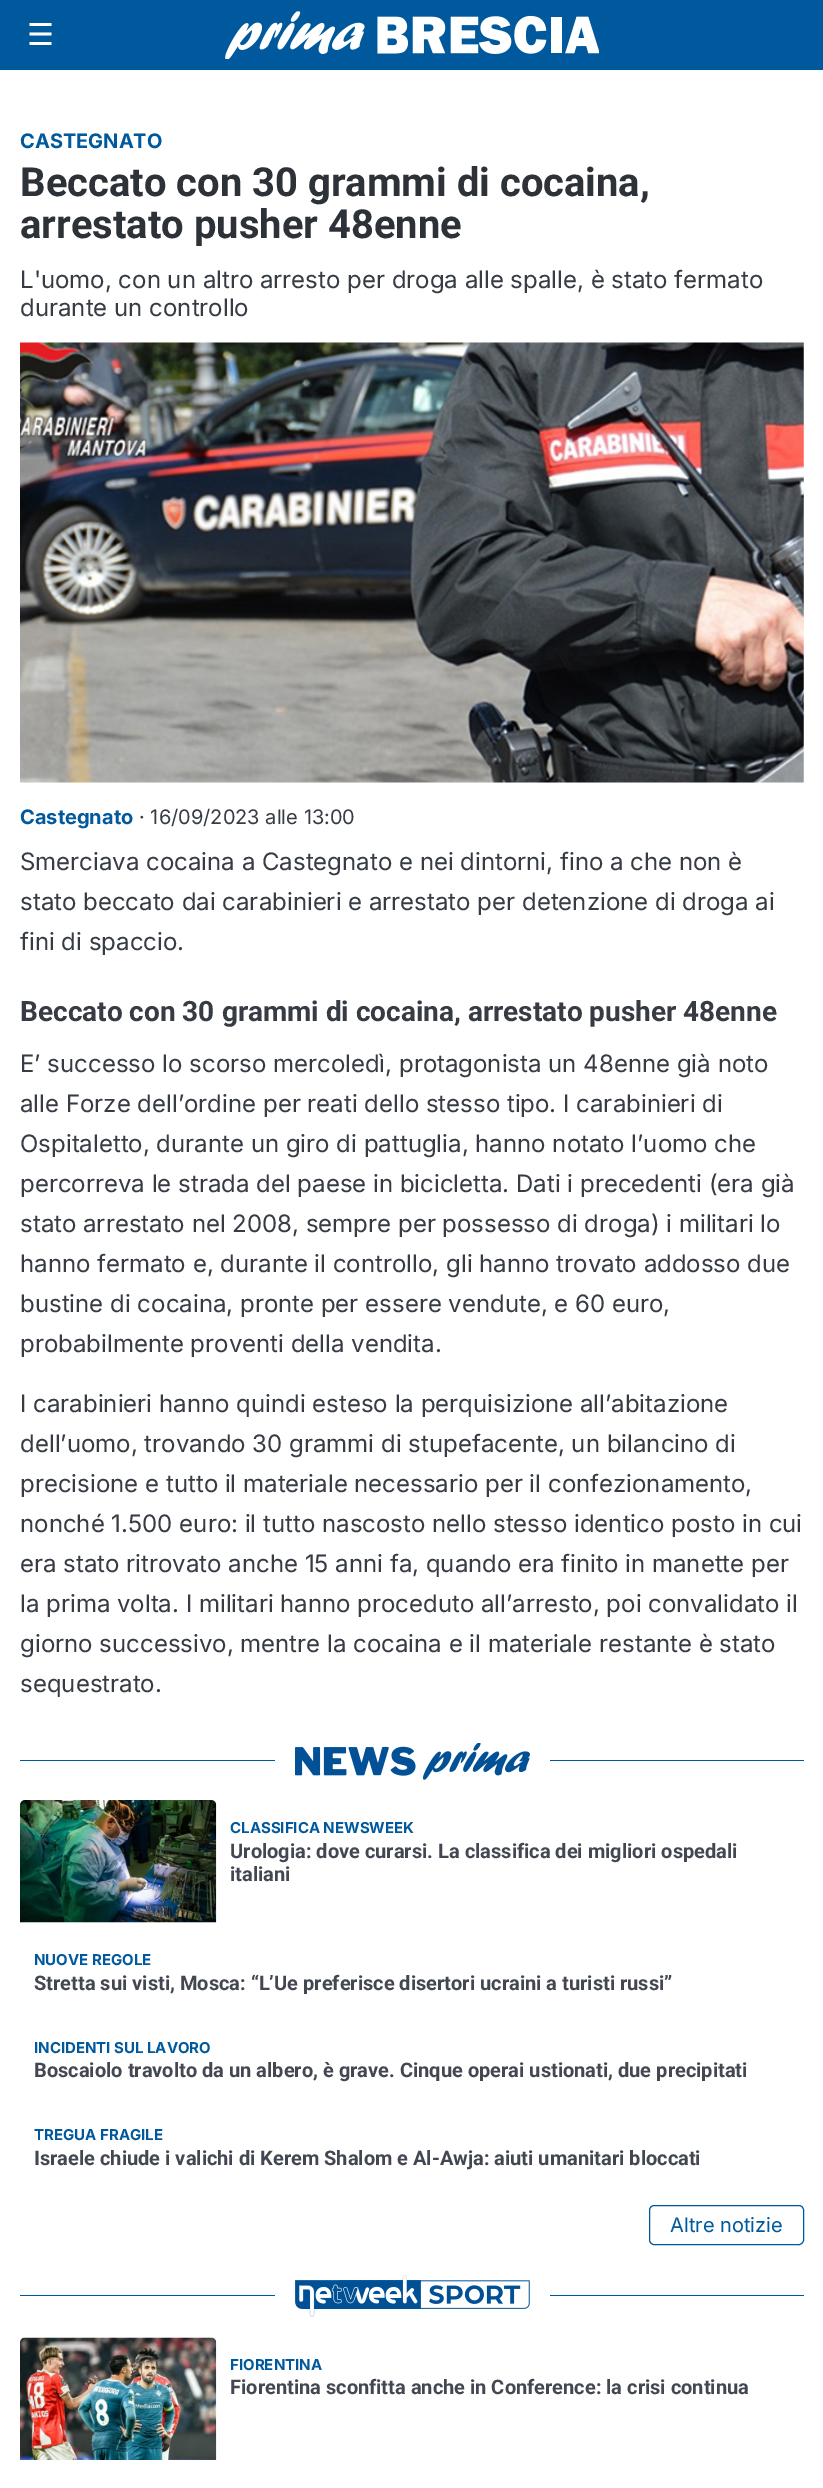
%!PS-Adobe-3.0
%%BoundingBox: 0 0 823 2488
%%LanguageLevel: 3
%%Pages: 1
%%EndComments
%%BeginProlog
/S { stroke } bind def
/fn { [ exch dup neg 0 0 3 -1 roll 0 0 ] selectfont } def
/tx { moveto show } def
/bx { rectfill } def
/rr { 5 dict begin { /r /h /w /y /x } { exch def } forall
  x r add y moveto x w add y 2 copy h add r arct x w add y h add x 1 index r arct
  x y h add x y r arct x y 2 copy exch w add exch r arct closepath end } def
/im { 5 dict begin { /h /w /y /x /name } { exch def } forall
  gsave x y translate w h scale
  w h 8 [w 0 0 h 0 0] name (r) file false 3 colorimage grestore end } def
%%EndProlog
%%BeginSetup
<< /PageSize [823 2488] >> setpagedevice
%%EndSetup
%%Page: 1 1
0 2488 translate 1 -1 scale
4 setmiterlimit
1 setgray
0 0 823 2488 bx
0 0.349 0.612 setrgbcolor
0 0 823 70 bx
/DejaVuSans-Regular 30 fn
1 setgray
(☰) 27 45 tx
(image0.raw) 225 11 374 48 im
/Inter-Bold 20 fn
0 0.349 0.612 setrgbcolor
(CASTEGNATO) 20 148 tx
/Roboto-Bold 40 fn
0.176 0.192 0.22 setrgbcolor
(Beccato con 30 grammi di cocaina,) 20 196 tx
(arrestato pusher 48enne) 20 238 tx
/Inter-Regular 24 fn
0.216 0.235 0.267 setrgbcolor
(L'uomo, con un altro arresto per droga alle spalle, è stato fermato) 20 288 tx
(durante un controllo) 20 316 tx
(image1.raw) 20 342 784 441 im
/Inter-Bold 20 fn
0 0.349 0.612 setrgbcolor
(Castegnato) 20 824 tx
/Inter-Regular 20 fn
0.216 0.235 0.267 setrgbcolor
(· 16/09/2023 alle 13:00) 139 824 tx
/Inter-Regular 24 fn
(Smerciava cocaina a Castegnato e nei dintorni, fino a che non è) 20 870 tx
(stato beccato dai carabinieri e arrestato per detenzione di droga ai) 20 910 tx
(fini di spaccio.) 20 950 tx
/Roboto-Bold 28 fn
(Beccato con 30 grammi di cocaina, arrestato pusher 48enne) 20 1021 tx
/Inter-Regular 24 fn
(E’ successo lo scorso mercoledì, protagonista un 48enne già noto) 20 1072 tx
(alle Forze dell’ordine per reati dello stesso tipo. I carabinieri di) 20 1112 tx
(Ospitaletto, durante un giro di pattuglia, hanno notato l’uomo che) 20 1152 tx
(percorreva le strada del paese in bicicletta. Dati i precedenti \(era già) 20 1192 tx
(stato arrestato nel 2008, sempre per possesso di droga\) i militari lo) 20 1232 tx
(hanno fermato e, durante il controllo, gli hanno trovato addosso due) 20 1272 tx
(bustine di cocaina, pronte per essere vendute, e 60 euro,) 20 1312 tx
(probabilmente proventi della vendita.) 20 1352 tx
(I carabinieri hanno quindi esteso la perquisizione all’abitazione) 20 1412 tx
(dell’uomo, trovando 30 grammi di stupefacente, un bilancino di) 20 1452 tx
(precisione e tutto il materiale necessario per il confezionamento,) 20 1492 tx
(nonché 1.500 euro: il tutto nascosto nello stesso identico posto in cui) 20 1532 tx
(era stato ritrovato anche 15 anni fa, quando era finito in manette per) 20 1572 tx
(la prima volta. I militari hanno proceduto all’arresto, poi convalidato il) 20 1612 tx
(giorno successivo, mentre la cocaina e il materiale restante è stato) 20 1652 tx
(sequestrato.) 20 1692 tx
0 0.349 0.612 setrgbcolor
20 1760 784 1 bx
1 setgray
275 1760 275 1 bx
(image2.raw) 295 1743 235 37 im
(image3.raw) 20 1800 197 123 im
/Inter-Bold 15 fn
0 0.349 0.612 setrgbcolor
(CLASSIFICA NEWSWEEK) 230 1833 tx
/Roboto-Bold 20 fn
0.259 0.278 0.318 setrgbcolor
(Urologia: dove curarsi. La classifica dei migliori ospedali) 230 1858 tx
(italiani) 230 1881 tx
/Inter-Bold 15 fn
0 0.349 0.612 setrgbcolor
(NUOVE REGOLE) 34 1965 tx
/Roboto-Bold 20 fn
0.259 0.278 0.318 setrgbcolor
(Stretta sui visti, Mosca: “L’Ue preferisce disertori ucraini a turisti russi”) 34 1990 tx
/Inter-Bold 15 fn
0 0.349 0.612 setrgbcolor
(INCIDENTI SUL LAVORO) 34 2053 tx
/Roboto-Bold 20 fn
0.259 0.278 0.318 setrgbcolor
(Boscaiolo travolto da un albero, è grave. Cinque operai ustionati, due precipitati) 34 2077 tx
/Inter-Bold 15 fn
0 0.349 0.612 setrgbcolor
(TREGUA FRAGILE) 34 2140 tx
/Roboto-Bold 20 fn
0.259 0.278 0.318 setrgbcolor
(Israele chiude i valichi di Kerem Shalom e Al-Awja: aiuti umanitari bloccati) 34 2165 tx
0 0.349 0.612 setrgbcolor
649.5 2205.5 154 39 4.5 rr S
/Inter-Regular 20 fn
(Altre notizie) 670 2232 tx
20 2295 784 1 bx
1 setgray
275 2295 275 1 bx
(image4.raw) 295 2275 235 42 im
(image5.raw) 20 2337 197 123 im
/Inter-Bold 15 fn
0 0.349 0.612 setrgbcolor
(FIORENTINA) 230 2370 tx
/Roboto-Bold 20 fn
0.259 0.278 0.318 setrgbcolor
(Fiorentina sconfitta anche in Conference: la crisi continua) 230 2394 tx
showpage
%%EOF
